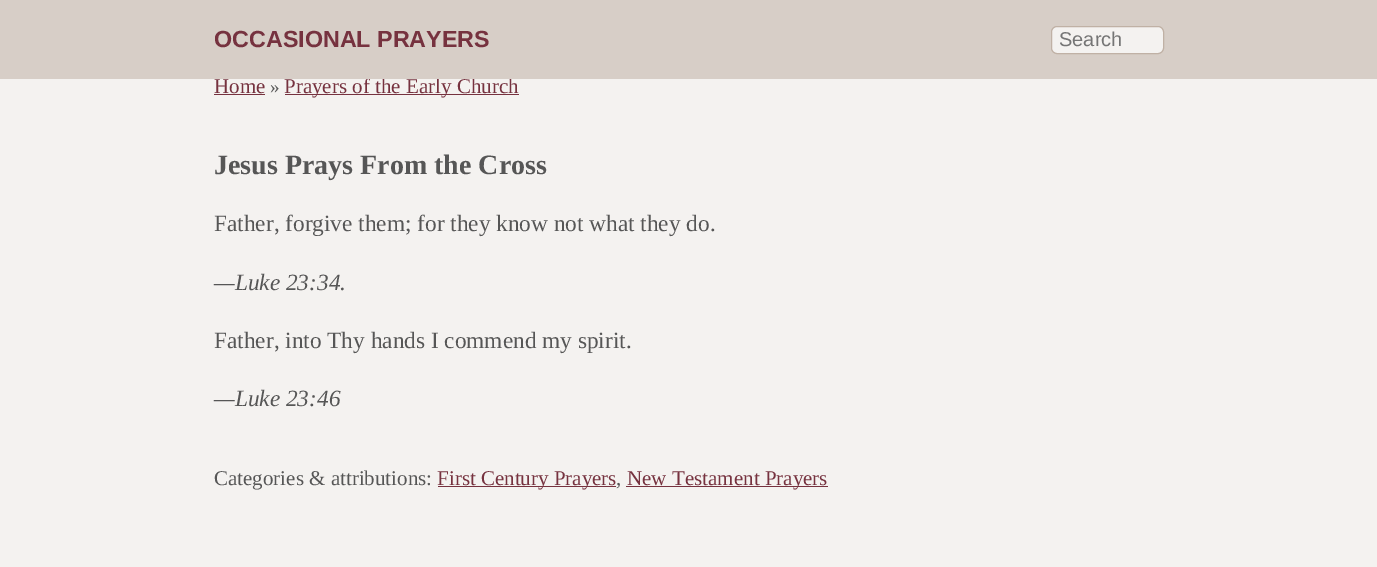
%!PS-Adobe-3.0
%%BoundingBox: 0 0 1377 567
%%LanguageLevel: 3
%%Pages: 1
%%EndComments
%%BeginProlog
/f { fill } bind def
/S { stroke } bind def
/q { gsave } bind def
/Q { grestore } bind def
/fn { [ exch dup neg 0 0 3 -1 roll 0 0 ] selectfont } def
/tx { moveto show } def
/bx { rectfill } def
/rr { 5 dict begin { /r /h /w /y /x } { exch def } forall
  x r add y moveto x w add y 2 copy h add r arct x w add y h add x 1 index r arct
  x y h add x y r arct x y 2 copy exch w add exch r arct closepath end } def
%%EndProlog
%%BeginSetup
<< /PageSize [1377 567] >> setpagedevice
%%EndSetup
%%Page: 1 1
0 567 translate 1 -1 scale
4 setmiterlimit
0.957 0.949 0.941 setrgbcolor
0 0 1377 567 bx
0.463 0.196 0.247 setrgbcolor
285 94 234 1 bx
/LiberationSerif-Regular 21 fn
(Prayers of the Early Church) 284 93 tx
0.843 0.808 0.78 setrgbcolor
0 0 1377 79 bx
/LiberationSans-Bold 23.3 fn
0.463 0.196 0.247 setrgbcolor
(OCCASIONAL PRAYERS) 214 47 tx
0.957 0.949 0.941 setrgbcolor
1051.5 26.5 112 27 5.5 rr q f Q
0.753 0.694 0.647 setrgbcolor
S
/LiberationSans-Regular 20 fn
0.459 setgray
(Search) 1059 46 tx
/LiberationSerif-Regular 21 fn
0.463 0.196 0.247 setrgbcolor
(Home) 214 93 tx
214 94 51 1 bx
/LiberationSerif-Regular 19 fn
0.337 setgray
(») 270 93 tx
/LiberationSerif-Bold 28 fn
(Jesus Prays From the Cross) 214 174 tx
/LiberationSerif-Regular 23.3 fn
(Father, forgive them; for they know not what they do.) 214 231 tx
/LiberationSerif-Italic 23.3 fn
(—Luke 23:34.) 214 290 tx
/LiberationSerif-Regular 23.3 fn
(Father, into Thy hands I commend my spirit.) 214 348 tx
/LiberationSerif-Italic 23.3 fn
(—Luke 23:46) 214 406 tx
/LiberationSerif-Regular 21 fn
(Categories & attributions:) 214 485 tx
0.463 0.196 0.247 setrgbcolor
438 486 178 1 bx
(First Century Prayers) 437 485 tx
0.337 setgray
(,) 616 485 tx
0.463 0.196 0.247 setrgbcolor
626 486 202 1 bx
(New Testament Prayers) 627 485 tx
showpage
%%EOF
